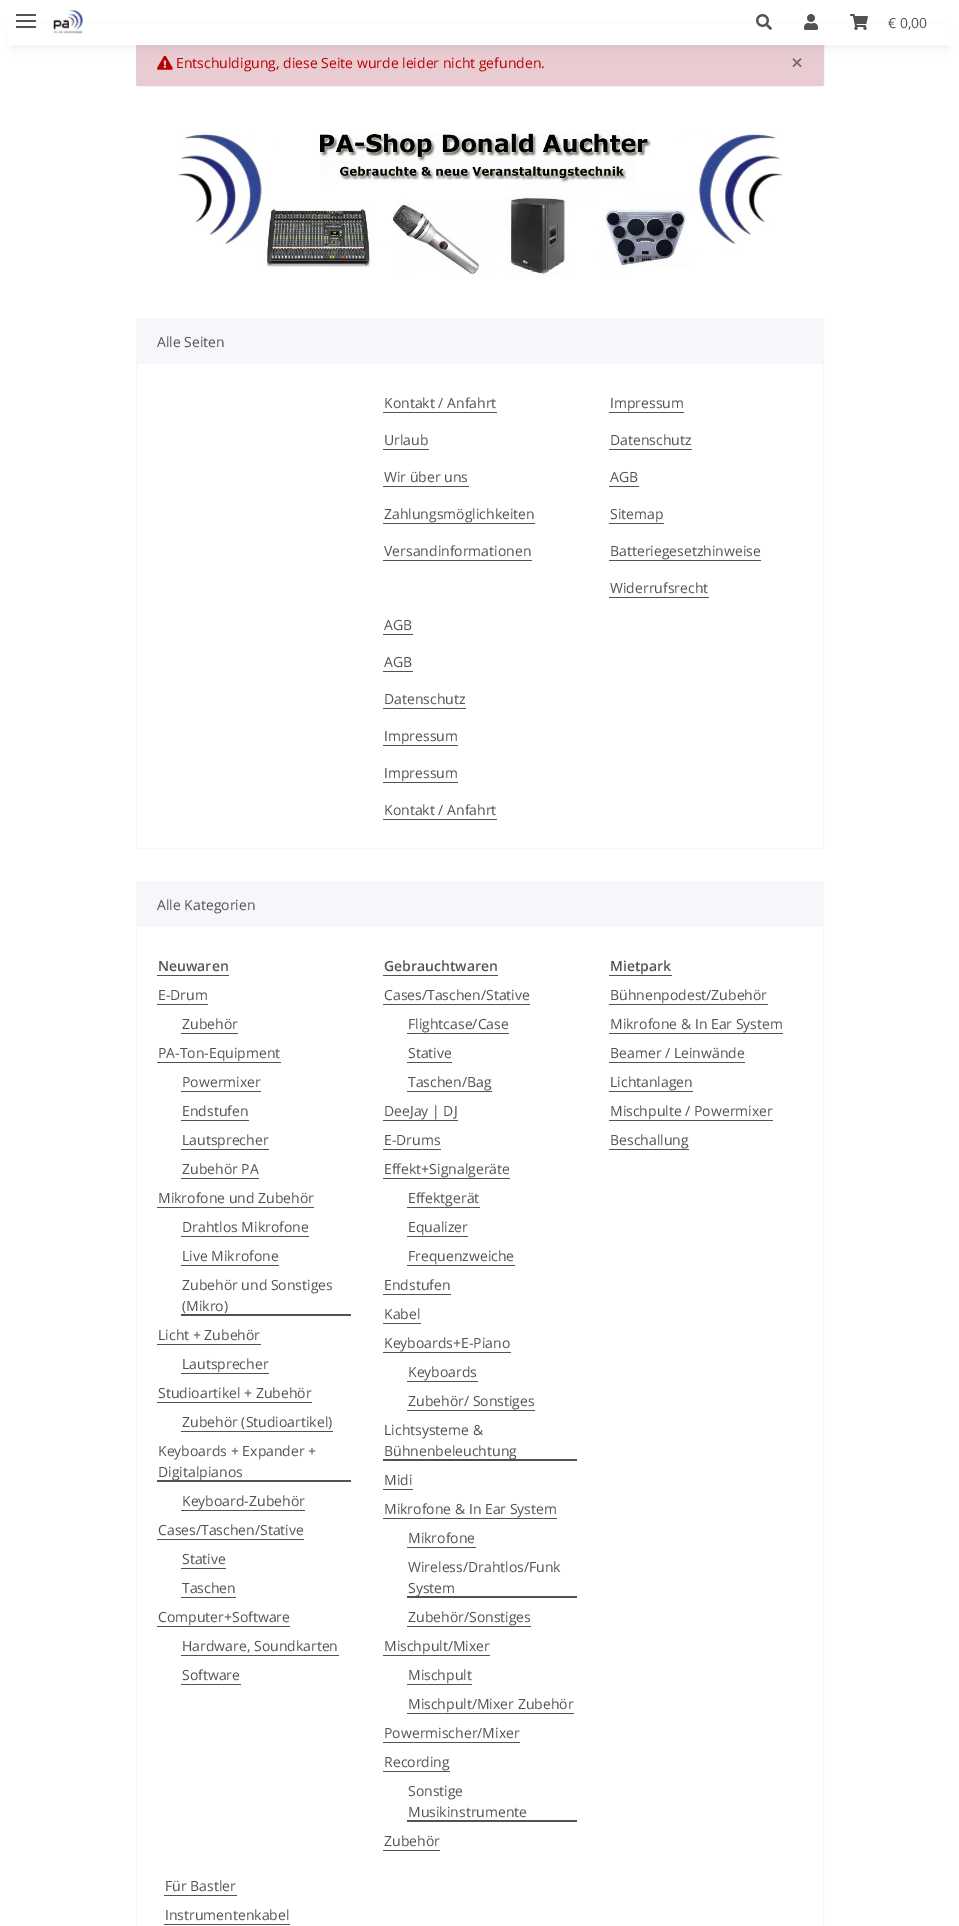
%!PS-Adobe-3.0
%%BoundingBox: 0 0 959 1926
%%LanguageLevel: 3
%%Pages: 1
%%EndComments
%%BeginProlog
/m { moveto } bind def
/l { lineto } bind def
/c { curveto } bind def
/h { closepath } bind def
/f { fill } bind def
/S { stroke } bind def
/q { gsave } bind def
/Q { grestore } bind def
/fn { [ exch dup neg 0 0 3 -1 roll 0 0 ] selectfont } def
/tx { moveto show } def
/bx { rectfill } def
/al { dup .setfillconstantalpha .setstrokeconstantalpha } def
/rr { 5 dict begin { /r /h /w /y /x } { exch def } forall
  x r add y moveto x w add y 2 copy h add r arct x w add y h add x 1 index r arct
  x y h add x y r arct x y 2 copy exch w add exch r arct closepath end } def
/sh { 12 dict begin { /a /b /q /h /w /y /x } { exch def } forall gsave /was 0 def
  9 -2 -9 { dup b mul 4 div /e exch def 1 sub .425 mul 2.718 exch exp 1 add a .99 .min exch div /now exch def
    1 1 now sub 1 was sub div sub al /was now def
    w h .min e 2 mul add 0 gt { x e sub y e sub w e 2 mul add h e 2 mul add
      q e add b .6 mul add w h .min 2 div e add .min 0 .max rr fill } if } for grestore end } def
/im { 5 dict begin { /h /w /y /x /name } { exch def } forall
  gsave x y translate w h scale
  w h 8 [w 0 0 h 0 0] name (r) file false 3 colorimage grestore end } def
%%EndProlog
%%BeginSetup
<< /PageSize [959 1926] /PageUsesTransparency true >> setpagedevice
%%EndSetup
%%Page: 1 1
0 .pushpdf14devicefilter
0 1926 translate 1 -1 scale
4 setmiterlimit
1 setgray
0 0 959 1926 bx
0.91 0.8 0.824 setrgbcolor
136.5 39.5 687 46 1.5 rr q f Q
S
(image4.raw) 157 55 16 15 im
0 setgray
12 28 935 21 0 4.5 0.06 sh
1 setgray
8 24 943 21 bx
0.322 setgray
16 20 20 2 1 rr f
16 14 20 2 1 rr f
16 26 20 2 1 rr f
(image0.raw) 53 10 31 24 im
(image1.raw) 756 14 16 16 im
(image2.raw) 804 14 14 16 im
(image3.raw) 850 14 18 16 im
/OpenSans-Regular 14 fn
(€ 0,00) 888 28 tx
0.725 0 0 setrgbcolor
(Entschuldigung, diese Seite wurde leider nicht gefunden.) 176 68 tx
/OpenSans-SemiBold 21 fn
0.455 0.4 0.412 setrgbcolor
(×) 791 70 tx
(image5.raw) 178 130 605 147 im
0.961 0.969 0.98 setrgbcolor
136.5 318.5 687 530 1.5 rr S
138 319 m 822 319 l 822.5 319 823 319.5 823 320 c 823 364 l 137 364 l 137 320 l 137 319.5 137.5 319 138 319 c h f
/OpenSans-Regular 14 fn
0.322 setgray
(Alle Seiten) 157 347 tx
(Kontakt / Anfahrt) 384 408 tx
383 412 114 1 bx
(Urlaub) 384 445 tx
383 449 46 1 bx
(Wir über uns) 384 482 tx
383 486 86 1 bx
(Zahlungsmöglichkeiten) 384 519 tx
383 523 152 1 bx
(Versandinformationen) 384 556 tx
383 560 149 1 bx
(Impressum) 610 408 tx
609 412 75 1 bx
(Datenschutz) 610 445 tx
609 449 83 1 bx
(AGB) 610 482 tx
609 486 30 1 bx
(Sitemap) 610 519 tx
609 523 55 1 bx
(Batteriegesetzhinweise) 610 556 tx
609 560 152 1 bx
(Widerrufsrecht) 610 593 tx
609 597 100 1 bx
(AGB) 384 630 tx
383 634 30 1 bx
(AGB) 384 667 tx
383 671 30 1 bx
(Datenschutz) 384 704 tx
383 708 83 1 bx
(Impressum) 384 741 tx
383 745 75 1 bx
(Impressum) 384 778 tx
383 782 75 1 bx
(Kontakt / Anfahrt) 384 815 tx
383 819 114 1 bx
0.961 0.969 0.98 setrgbcolor
136.5 881.5 687 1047 1.5 rr S
138 882 m 822 882 l 822.5 882 823 882.5 823 883 c 823 927 l 137 927 l 137 883 l 137 882.5 137.5 882 138 882 c h f
0.322 setgray
(Alle Kategorien) 157 910 tx
/OpenSans-SemiBold 14 fn
(Neuwaren) 158 971 tx
157 975 72 1 bx
/OpenSans-Regular 14 fn
(E-Drum) 158 1000 tx
157 1004 51 1 bx
(Zubehör) 182 1029 tx
181 1033 57 1 bx
(PA-Ton-Equipment) 158 1058 tx
157 1062 124 1 bx
(Powermixer) 182 1087 tx
181 1091 80 1 bx
(Endstufen) 182 1116 tx
181 1120 68 1 bx
(Lautsprecher) 182 1145 tx
181 1149 88 1 bx
(Zubehör PA) 182 1174 tx
181 1178 78 1 bx
(Mikrofone und Zubehör) 158 1203 tx
157 1207 157 1 bx
(Drahtlos Mikrofone) 182 1232 tx
181 1236 128 1 bx
(Live Mikrofone) 182 1261 tx
181 1265 98 1 bx
(Zubehör und Sonstiges) 182 1290 tx
(\(Mikro\)) 182 1311 tx
181 1314 170 2 bx
(Licht + Zubehör) 158 1340 tx
157 1344 104 1 bx
(Lautsprecher) 182 1369 tx
181 1373 88 1 bx
(Studioartikel + Zubehör) 158 1398 tx
157 1402 155 1 bx
(Zubehör \(Studioartikel\)) 182 1427 tx
181 1431 152 1 bx
(Keyboards + Expander +) 158 1456 tx
(Digitalpianos) 158 1477 tx
157 1480 194 2 bx
(Keyboard-Zubehör) 182 1506 tx
181 1510 124 1 bx
(Cases/Taschen/Stative) 158 1535 tx
157 1539 147 1 bx
(Stative) 182 1564 tx
181 1568 45 1 bx
(Taschen) 182 1593 tx
181 1597 55 1 bx
(Computer+Software) 158 1622 tx
157 1626 133 1 bx
(Hardware, Soundkarten) 182 1651 tx
181 1655 158 1 bx
(Software) 182 1680 tx
181 1684 60 1 bx
/OpenSans-SemiBold 14 fn
(Gebrauchtwaren) 384 971 tx
383 975 115 1 bx
/OpenSans-Regular 14 fn
(Cases/Taschen/Stative) 384 1000 tx
383 1004 147 1 bx
(Flightcase/Case) 408 1029 tx
407 1033 102 1 bx
(Stative) 408 1058 tx
407 1062 45 1 bx
(Taschen/Bag) 408 1087 tx
407 1091 85 1 bx
(DeeJay | DJ) 384 1116 tx
383 1120 75 1 bx
(E-Drums) 384 1145 tx
383 1149 58 1 bx
(Effekt+Signalgeräte) 384 1174 tx
383 1178 127 1 bx
(Effektgerät) 408 1203 tx
407 1207 73 1 bx
(Equalizer) 408 1232 tx
407 1236 61 1 bx
(Frequenzweiche) 408 1261 tx
407 1265 108 1 bx
(Endstufen) 384 1290 tx
383 1294 68 1 bx
(Kabel) 384 1319 tx
383 1323 38 1 bx
(Keyboards+E-Piano) 384 1348 tx
383 1352 128 1 bx
(Keyboards) 408 1377 tx
407 1381 71 1 bx
(Zubehör/ Sonstiges) 408 1406 tx
407 1410 128 1 bx
(Lichtsysteme &) 384 1435 tx
(Bühnenbeleuchtung) 384 1456 tx
383 1459 194 2 bx
(Midi) 384 1485 tx
383 1489 30 1 bx
(Mikrofone & In Ear System) 384 1514 tx
383 1518 174 1 bx
(Mikrofone) 408 1543 tx
407 1547 69 1 bx
(Wireless/Drahtlos/Funk) 408 1572 tx
(System) 408 1593 tx
407 1596 170 2 bx
(Zubehör/Sonstiges) 408 1622 tx
407 1626 124 1 bx
(Mischpult/Mixer) 384 1651 tx
383 1655 107 1 bx
(Mischpult) 408 1680 tx
407 1684 65 1 bx
(Mischpult/Mixer Zubehör) 408 1709 tx
407 1713 167 1 bx
(Powermischer/Mixer) 384 1738 tx
383 1742 137 1 bx
(Recording) 384 1767 tx
383 1771 67 1 bx
(Sonstige) 408 1796 tx
(Musikinstrumente) 408 1817 tx
407 1820 170 2 bx
(Zubehör) 384 1846 tx
383 1850 57 1 bx
/OpenSans-SemiBold 14 fn
(Mietpark) 610 971 tx
609 975 63 1 bx
/OpenSans-Regular 14 fn
(Bühnenpodest/Zubehör) 610 1000 tx
609 1004 159 1 bx
(Mikrofone & In Ear System) 610 1029 tx
609 1033 174 1 bx
(Beamer / Leinwände) 610 1058 tx
609 1062 136 1 bx
(Lichtanlagen) 610 1087 tx
609 1091 84 1 bx
(Mischpulte / Powermixer) 610 1116 tx
609 1120 164 1 bx
(Beschallung) 610 1145 tx
609 1149 80 1 bx
(Für Bastler) 165 1891 tx
164 1895 73 1 bx
(Instrumentenkabel) 165 1920 tx
164 1924 126 1 bx
.poppdf14devicefilter showpage
%%EOF
